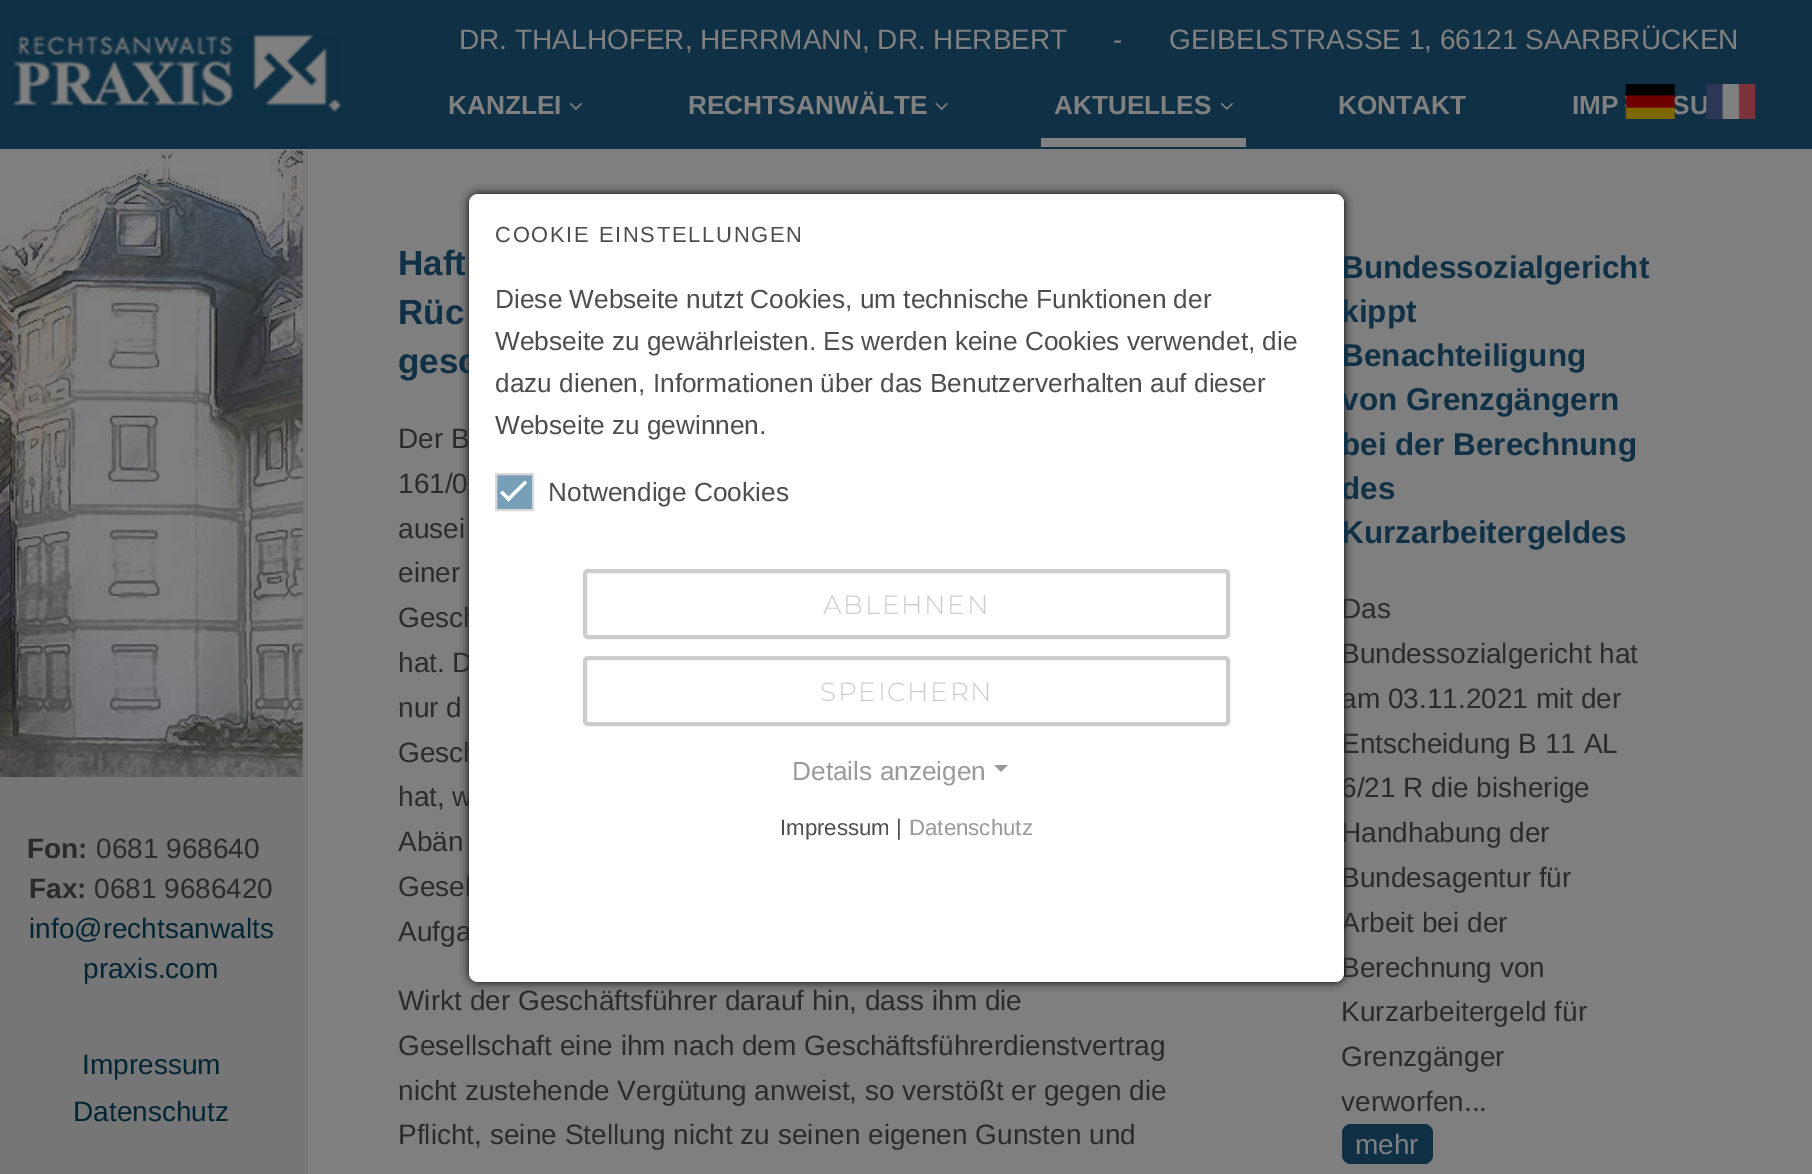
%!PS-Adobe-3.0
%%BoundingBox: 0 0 1812 1174
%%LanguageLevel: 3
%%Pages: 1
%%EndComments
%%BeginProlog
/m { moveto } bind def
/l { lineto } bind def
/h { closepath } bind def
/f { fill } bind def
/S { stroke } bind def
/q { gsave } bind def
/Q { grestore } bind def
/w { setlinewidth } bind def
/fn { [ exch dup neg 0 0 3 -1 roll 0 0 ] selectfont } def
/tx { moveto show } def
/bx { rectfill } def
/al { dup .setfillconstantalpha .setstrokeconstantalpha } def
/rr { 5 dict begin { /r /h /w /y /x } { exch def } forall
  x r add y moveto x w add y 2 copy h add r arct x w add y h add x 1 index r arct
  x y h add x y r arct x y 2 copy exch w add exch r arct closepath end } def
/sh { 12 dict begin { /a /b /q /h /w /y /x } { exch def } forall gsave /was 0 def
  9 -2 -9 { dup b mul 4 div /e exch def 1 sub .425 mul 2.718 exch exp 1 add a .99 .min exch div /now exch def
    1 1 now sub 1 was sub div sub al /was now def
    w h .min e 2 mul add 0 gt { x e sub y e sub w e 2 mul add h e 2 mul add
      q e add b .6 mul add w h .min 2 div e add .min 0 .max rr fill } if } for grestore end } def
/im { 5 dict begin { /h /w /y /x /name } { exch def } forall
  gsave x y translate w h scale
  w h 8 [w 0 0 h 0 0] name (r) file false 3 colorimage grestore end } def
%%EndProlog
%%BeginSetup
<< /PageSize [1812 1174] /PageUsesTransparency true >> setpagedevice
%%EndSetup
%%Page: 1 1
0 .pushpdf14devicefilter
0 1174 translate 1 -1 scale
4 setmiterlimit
0.498 setgray
0 0 1812 1174 bx
0.059 0.188 0.271 setrgbcolor
0 0 1812 149 bx
(image0.raw) 13 34 329 79 im
/LiberationSans-Regular 28 fn
0.502 setgray
(DR. THALHOFER, HERRMANN, DR. HERBERT) 459 49 tx
(-) 1113 49 tx
(GEIBELSTRASSE 1, 66121 SAARBRÜCKEN) 1169 49 tx
/LiberationSans-Bold 26.25 fn
(SU) 1672 114 tx
(image1.raw) 1625 84 51 35 im
(image2.raw) 1706 84 50 35 im
(KANZLEI) 448 114 tx
(image3.raw) 569 102 14 8 im
(RECHTSANWÄLTE) 688 114 tx
(image4.raw) 935 102 13 8 im
1041 138 205 9 bx
(AKTUELLES) 1054 114 tx
(image3.raw) 1220 102 14 8 im
(KONTAKT) 1338 114 tx
(IMP) 1572 114 tx
0 setgray
469 194 875 788 9 4.5 1 sh
/LiberationSans-Bold 35 fn
0.059 0.188 0.271 setrgbcolor
(gesc) 398 373 tx
/LiberationSans-Regular 28 fn
0.169 setgray
(Gesch) 398 627 tx
(hat. D) 398 672 tx
(Gesch) 398 762 tx
(hat, w) 398 806 tx
(Gesel) 398 896 tx
(Aufga) 398 941 tx
/LiberationSans-Bold 31.5 fn
0.059 0.188 0.271 setrgbcolor
(Bundessozialgericht) 1341 278 tx
(kippt) 1341 322 tx
(Benachteiligung) 1341 366 tx
(von Grenzgängern) 1341 410 tx
(bei der Berechnung) 1341 455 tx
(des) 1341 499 tx
(Kurzarbeitergeldes) 1341 543 tx
/LiberationSans-Regular 28 fn
0.169 setgray
(Das) 1341 618 tx
(Bundessozialgericht hat) 1341 663 tx
(am 03.11.2021 mit der) 1341 708 tx
(Entscheidung B 11 AL) 1341 753 tx
(6/21 R die bisherige) 1341 797 tx
(Handhabung der) 1341 842 tx
(Bundesagentur für) 1341 887 tx
(Arbeit bei der) 1341 932 tx
(Berechnung von) 1341 977 tx
1 setgray
469 194 875 788 9 rr f
/LiberationSans-Regular 21.9 fn
0.302 setgray
495 242 m 1.75 0 (COOKIE EINSTELLUNGEN) ashow
/LiberationSans-Regular 26.25 fn
(Diese Webseite nutzt Cookies, um technische Funktionen der) 495 308 tx
(Webseite zu gewährleisten. Es werden keine Cookies verwendet, die) 495 350 tx
(dazu dienen, Informationen über das Benutzerverhalten auf dieser) 495 392 tx
(Webseite zu gewinnen.) 495 434 tx
0.467 0.627 0.722 setrgbcolor
496 474 m 533 474 l 533 510 l 496 510 l h q f Q
0.851 setgray
2 w
S
1 setgray
525 480.5 m 527 483 l 508.5 501.5 l 506 499 l h f
502.5 490.5 m 511 499 l 508.5 501.5 l 500 493 l h f
0.302 setgray
(Notwendige Cookies) 548 501 tx
0.8 setgray
4 w
585 571 643 66 3 rr S
/Montserrat-Light 26.25 fn
823 614 m 1.75 0 (ABLEHNEN) ashow
585 658 643 66 3 rr S
820 701 m 1.75 0 (SPEICHERN) ashow
/LiberationSans-Regular 26.25 fn
0.6 setgray
(Details anzeigen) 792 780 tx
994 765 m 1008 765 l 1001 772 l h f
/LiberationSans-Regular 22.25 fn
0.302 setgray
(Impressum |) 780 835 tx
0.6 setgray
(Datenschutz) 909 835 tx
q 0 151 m 308 151 l 308 1174 l 0 1174 l h clip newpath
<< /ShadingType 2 /ColorSpace /DeviceRGB /Coords [0 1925 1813 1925] /Extend [true true] /Function << /FunctionType 3 /Domain [0 1] /Functions [<< /FunctionType 2 /Domain [0 1] /C0 [0.463 0.463 0.463] /C1 [0.463 0.463 0.463] /N 1 >> << /FunctionType 2 /Domain [0 1] /C0 [0.502 0.502 0.502] /C1 [0.502 0.502 0.502] /N 1 >>] /Bounds [0.17] /Encode [0 1 0 1] >> >> shfill Q
(image5.raw) 0 150 303 627 im
/LiberationSans-Bold 28 fn
0.169 setgray
(Fon:) 27 858 tx
/LiberationSans-Regular 28 fn
(0681 968640) 96 858 tx
/LiberationSans-Bold 28 fn
(Fax:) 29 898 tx
/LiberationSans-Regular 28 fn
(0681 9686420) 94 898 tx
0.008 0.145 0.204 setrgbcolor
(info@rechtsanwalts) 29 938 tx
(praxis.com) 83 978 tx
(Impressum) 82 1074 tx
(Datenschutz) 73 1121 tx
/LiberationSans-Bold 35 fn
0.059 0.188 0.271 setrgbcolor
(Haft) 398 275 tx
(Rüc) 398 324 tx
/LiberationSans-Regular 28 fn
0.169 setgray
(Der B) 398 448 tx
(161/0) 398 493 tx
(ausei) 398 538 tx
(einer) 398 582 tx
(nur d) 398 717 tx
(Abän) 398 851 tx
(Wirkt der Geschäftsführer darauf hin, dass ihm die) 398 1010 tx
(Gesellschaft eine ihm nach dem Geschäftsführerdienstvertrag) 398 1055 tx
(nicht zustehende Vergütung anweist, so verstößt er gegen die) 398 1100 tx
(Pflicht, seine Stellung nicht zu seinen eigenen Gunsten und) 398 1144 tx
(Kurzarbeitergeld für) 1341 1021 tx
(Grenzgänger) 1341 1066 tx
(verworfen...) 1341 1111 tx
0.059 0.188 0.271 setrgbcolor
1342 1124 91 40 9 rr f
0.502 setgray
(mehr) 1355 1154 tx
.poppdf14devicefilter showpage
%%EOF
